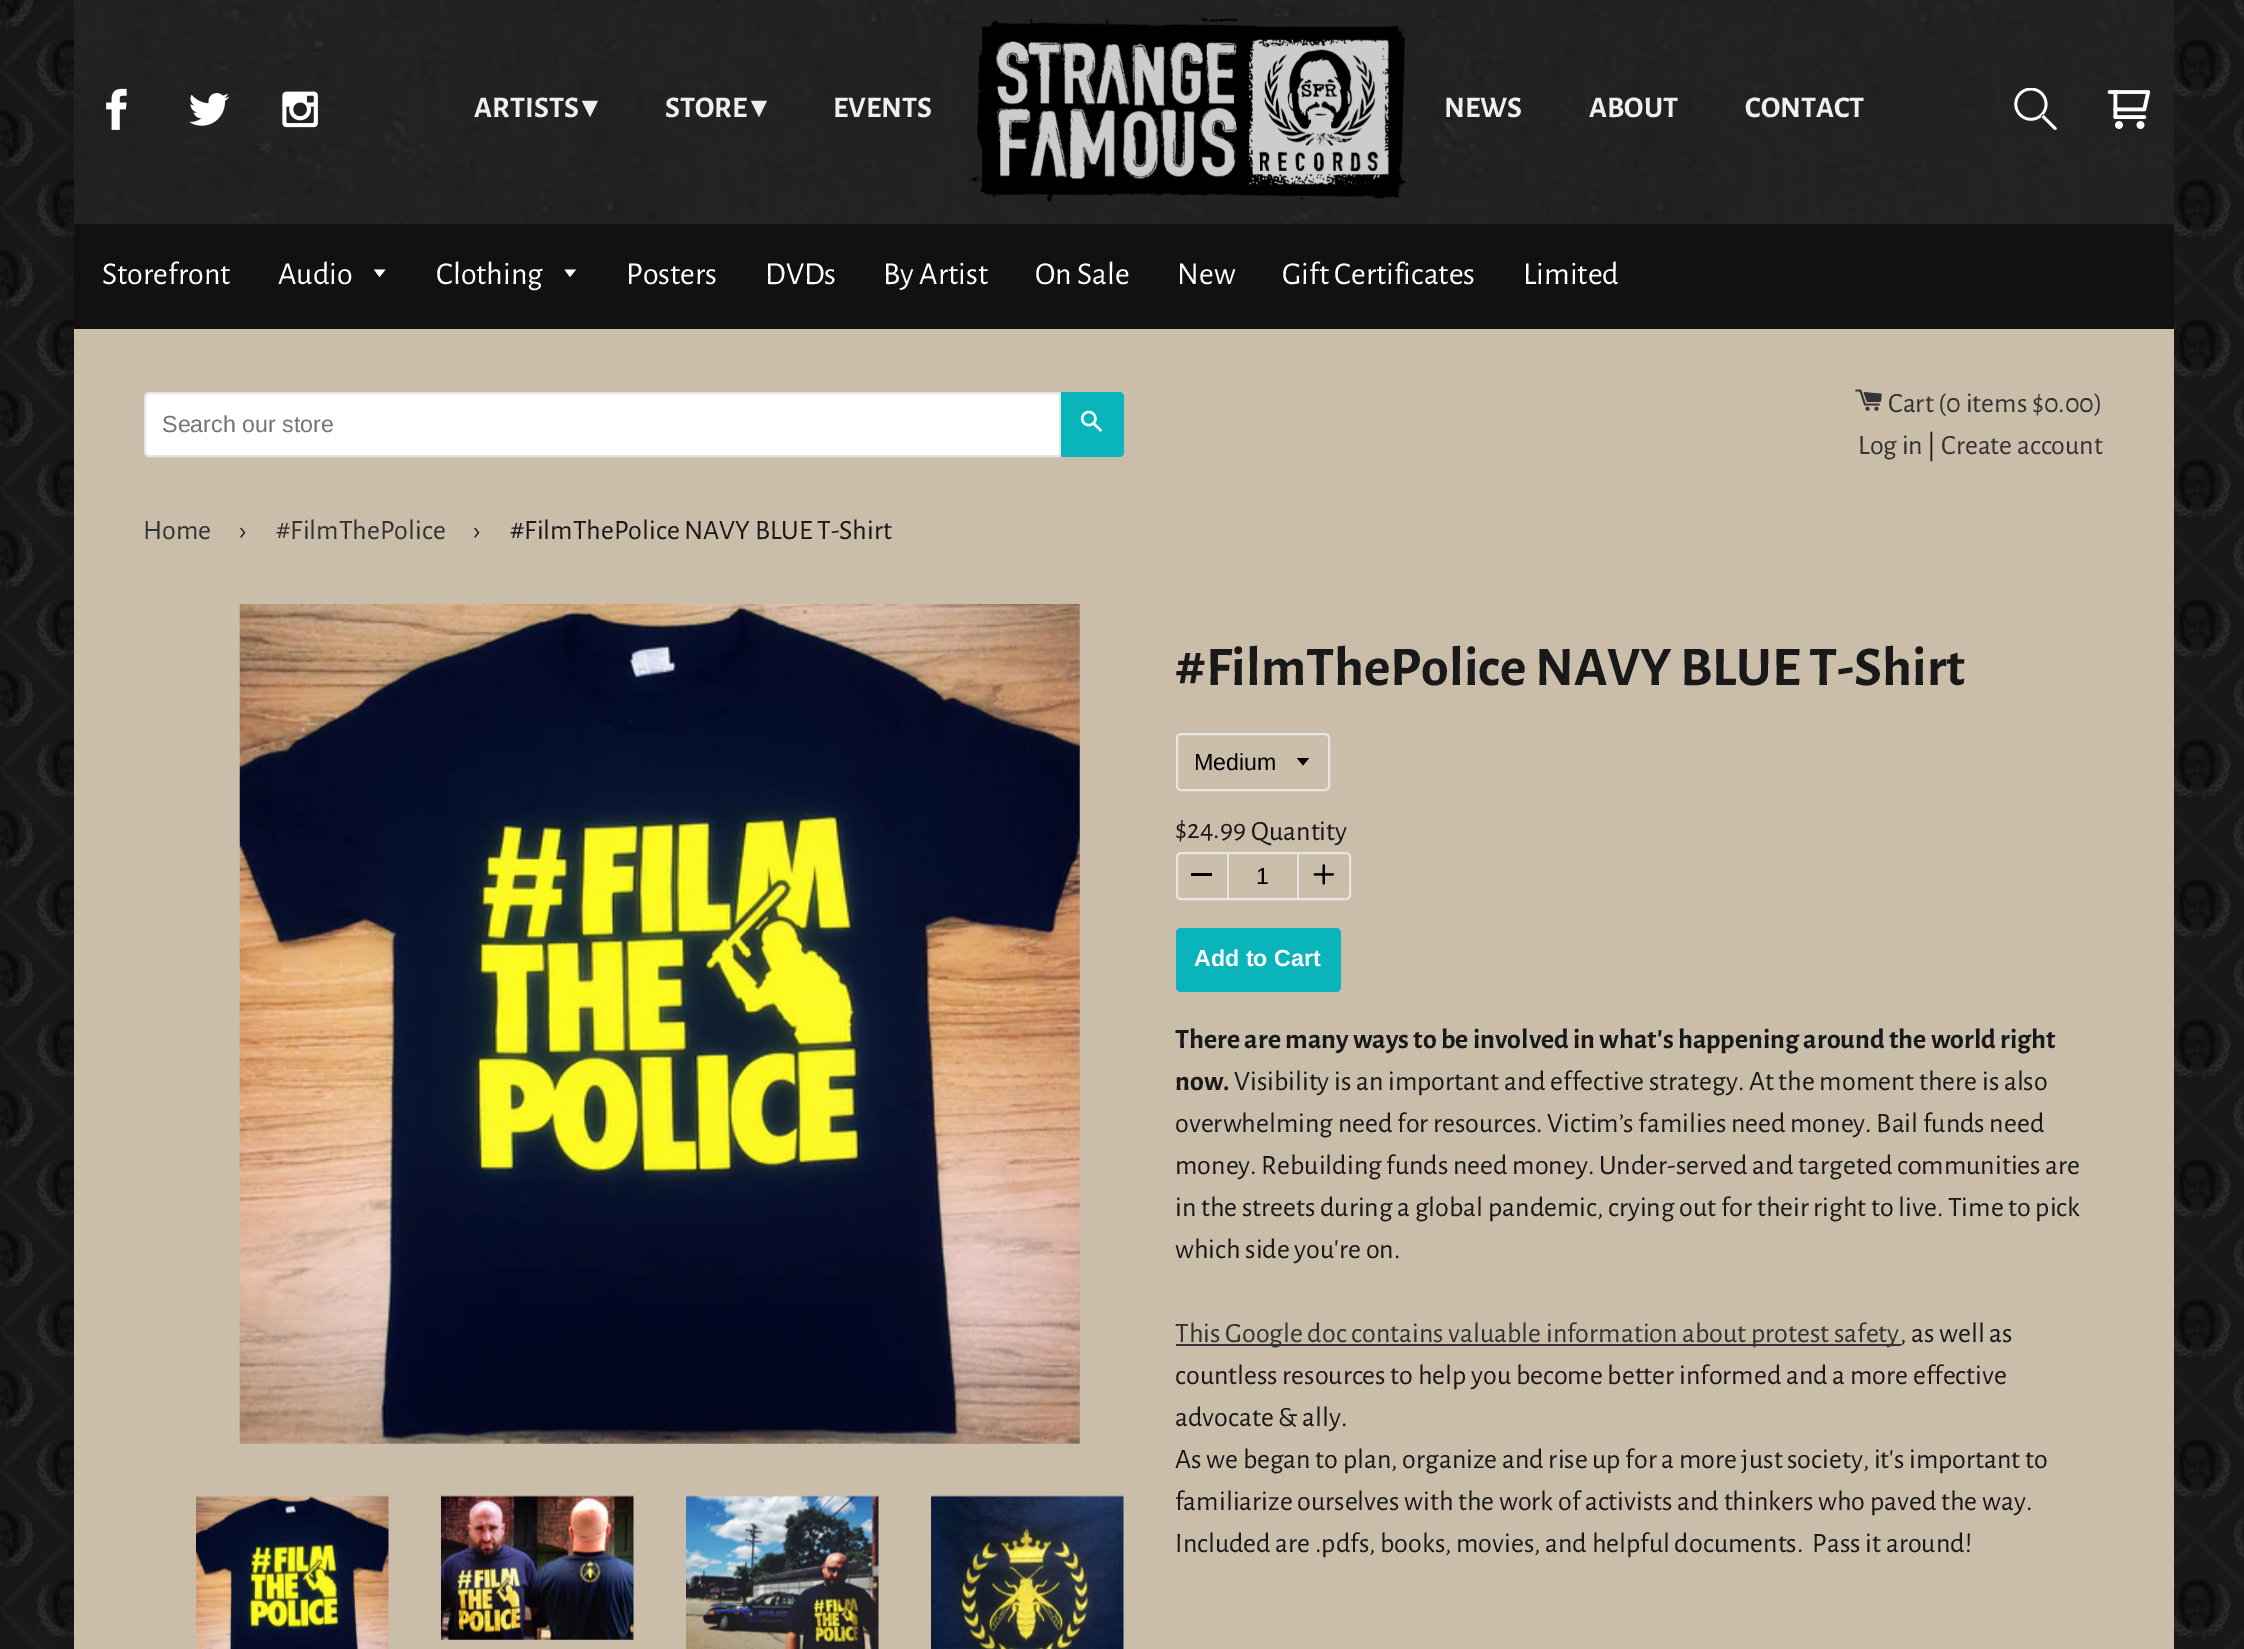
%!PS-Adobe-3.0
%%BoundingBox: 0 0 2244 1649
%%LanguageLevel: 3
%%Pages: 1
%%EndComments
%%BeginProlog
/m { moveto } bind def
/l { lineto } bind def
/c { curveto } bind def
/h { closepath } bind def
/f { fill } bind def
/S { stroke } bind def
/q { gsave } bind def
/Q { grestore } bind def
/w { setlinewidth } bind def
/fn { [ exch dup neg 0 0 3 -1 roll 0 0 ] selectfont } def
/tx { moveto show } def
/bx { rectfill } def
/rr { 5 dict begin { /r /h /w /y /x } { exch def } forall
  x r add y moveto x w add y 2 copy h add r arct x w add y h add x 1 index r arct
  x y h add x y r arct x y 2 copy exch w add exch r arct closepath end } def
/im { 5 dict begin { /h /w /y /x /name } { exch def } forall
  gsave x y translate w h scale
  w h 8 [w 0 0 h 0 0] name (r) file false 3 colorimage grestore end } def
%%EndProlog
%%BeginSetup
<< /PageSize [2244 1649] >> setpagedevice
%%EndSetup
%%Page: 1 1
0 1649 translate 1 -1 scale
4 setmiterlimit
1 setgray
0 0 2244 1649 bx
(image0.raw) 0 0 2244 1649 im
0.792 0.741 0.667 setrgbcolor
74 329 2100 1320 bx
(image1.raw) 74 0 2100 224 im
(image2.raw) 106 88 21 42 im
(image3.raw) 189 93 40 33 im
(image4.raw) 282 91 36 37 im
/AlegreyaSans-Bold 30 fn
0.937 setgray
(ARTISTS) 474 117 tx
/DejaVuSans-Bold 30 fn
(▾) 582 117 tx
/AlegreyaSans-Bold 30 fn
(STORE) 665 117 tx
/DejaVuSans-Bold 30 fn
(▾) 751 117 tx
/AlegreyaSans-Bold 30 fn
(EVENTS) 833 117 tx
(image5.raw) 968 16 439 187 im
(NEWS) 1444 117 tx
(ABOUT) 1589 117 tx
(CONTACT) 1745 117 tx
(image6.raw) 2014 88 43 42 im
(image7.raw) 2107 90 44 39 im
0.067 setgray
74 224 2100 105 bx
/AlegreyaSans-Regular 32 fn
1 setgray
(Storefront) 102 284 tx
(Audio) 278 284 tx
374 269.5 m 379.5 277 l 385.5 269.5 l h f
(Clothing) 436 284 tx
564.5 269.5 m 570 277 l 576 269.5 l h f
(Posters) 626 284 tx
(DVDs) 765 284 tx
(By Artist) 883 284 tx
(On Sale) 1035 284 tx
(New) 1177 284 tx
(Gift Certificates) 1282 284 tx
(Limited) 1523 284 tx
149 393 m 1060 393 l 1060 456 l 149 456 l 147 456 145 454 145 452 c 145 397 l 145 395 147 393 149 393 c h q f Q
0.898 setgray
2 w
S
/LiberationSans-Regular 23.25 fn
0.459 setgray
(Search our store) 162 432 tx
0.035 0.706 0.733 setrgbcolor
1061 392 m 1119 392 l 1122 392 1124 394 1124 397 c 1124 452 l 1124 455 1122 457 1119 457 c 1061 457 l h f
(image8.raw) 1080 410 22 22 im
(image9.raw) 1855 389 27 22 im
/AlegreyaSans-Regular 28 fn
0.2 setgray
(Cart \(0 items $0.00\)) 1888 412 tx
(Log in) 1858 454 tx
0.098 setgray
(|) 1927 454 tx
0.2 setgray
(Create account) 1941 454 tx
(Home) 143 539 tx
0.098 setgray
(›) 240 539 tx
0.2 setgray
(#FilmThePolice) 276 539 tx
0.098 setgray
(›) 474 539 tx
(#FilmThePolice NAVY BLUE T-Shirt) 510 539 tx
(image10.raw) 239 604 841 840 im
(image11.raw) 196 1495 193 154 im
(image12.raw) 441 1495 193 145 im
(image13.raw) 686 1495 193 154 im
(image14.raw) 931 1495 193 154 im
/AlegreyaSans-Bold 56 fn
(#FilmThePolice NAVY BLUE T-Shirt) 1175 685 tx
0 setgray
1297 758 m 1303 765.5 l 1309 758 l h f
0.898 setgray
1177 734 152 56 4 rr S
/LiberationSans-Regular 23.25 fn
0 setgray
(Medium) 1194 770 tx
/AlegreyaSans-Regular 28 fn
0.098 setgray
($24.99) 1175 838 tx
(Quantity) 1251 840 tx
0.898 setgray
1177 853 173 46 4 rr S
1227 852 2 48 bx
0 setgray
1191 873 21 3 bx
/LiberationSans-Regular 23.25 fn
(1) 1256 884 tx
0.898 setgray
1297 852 2 48 bx
(image15.raw) 1313 864 21 21 im
0.035 0.706 0.733 setrgbcolor
1176 928 165 64 5 rr f
/LiberationSans-Bold 23.25 fn
1 setgray
(Add to Cart) 1194 966 tx
/AlegreyaSans-Bold 28 fn
0.098 setgray
(There are many ways to be involved in what's happening around the world right) 1175 1048 tx
(now.) 1175 1090 tx
/AlegreyaSans-Regular 28 fn
(Visibility is an important and effective strategy. At the moment there is also) 1234 1090 tx
(overwhelming need for resources. Victim’s families need money. Bail funds need) 1175 1132 tx
(money. Rebuilding funds need money. Under-served and targeted communities are) 1175 1174 tx
(in the streets during a global pandemic, crying out for their right to live. Time to pick) 1175 1216 tx
(which side you're on.) 1175 1258 tx
0.2 setgray
1176 1344 725 2 bx
(This Google doc contains valuable information about protest safety) 1175 1342 tx
0.098 setgray
(, as well as) 1900 1342 tx
(countless resources to help you become better informed and a more effective) 1175 1384 tx
(advocate & ally.) 1175 1426 tx
(As we began to plan, organize and rise up for a more just society, it's important to) 1175 1468 tx
(familiarize ourselves with the work of activists and thinkers who paved the way.) 1175 1510 tx
(Included are .pdfs, books, movies, and helpful documents.  Pass it around!) 1175 1552 tx
showpage
%%EOF
